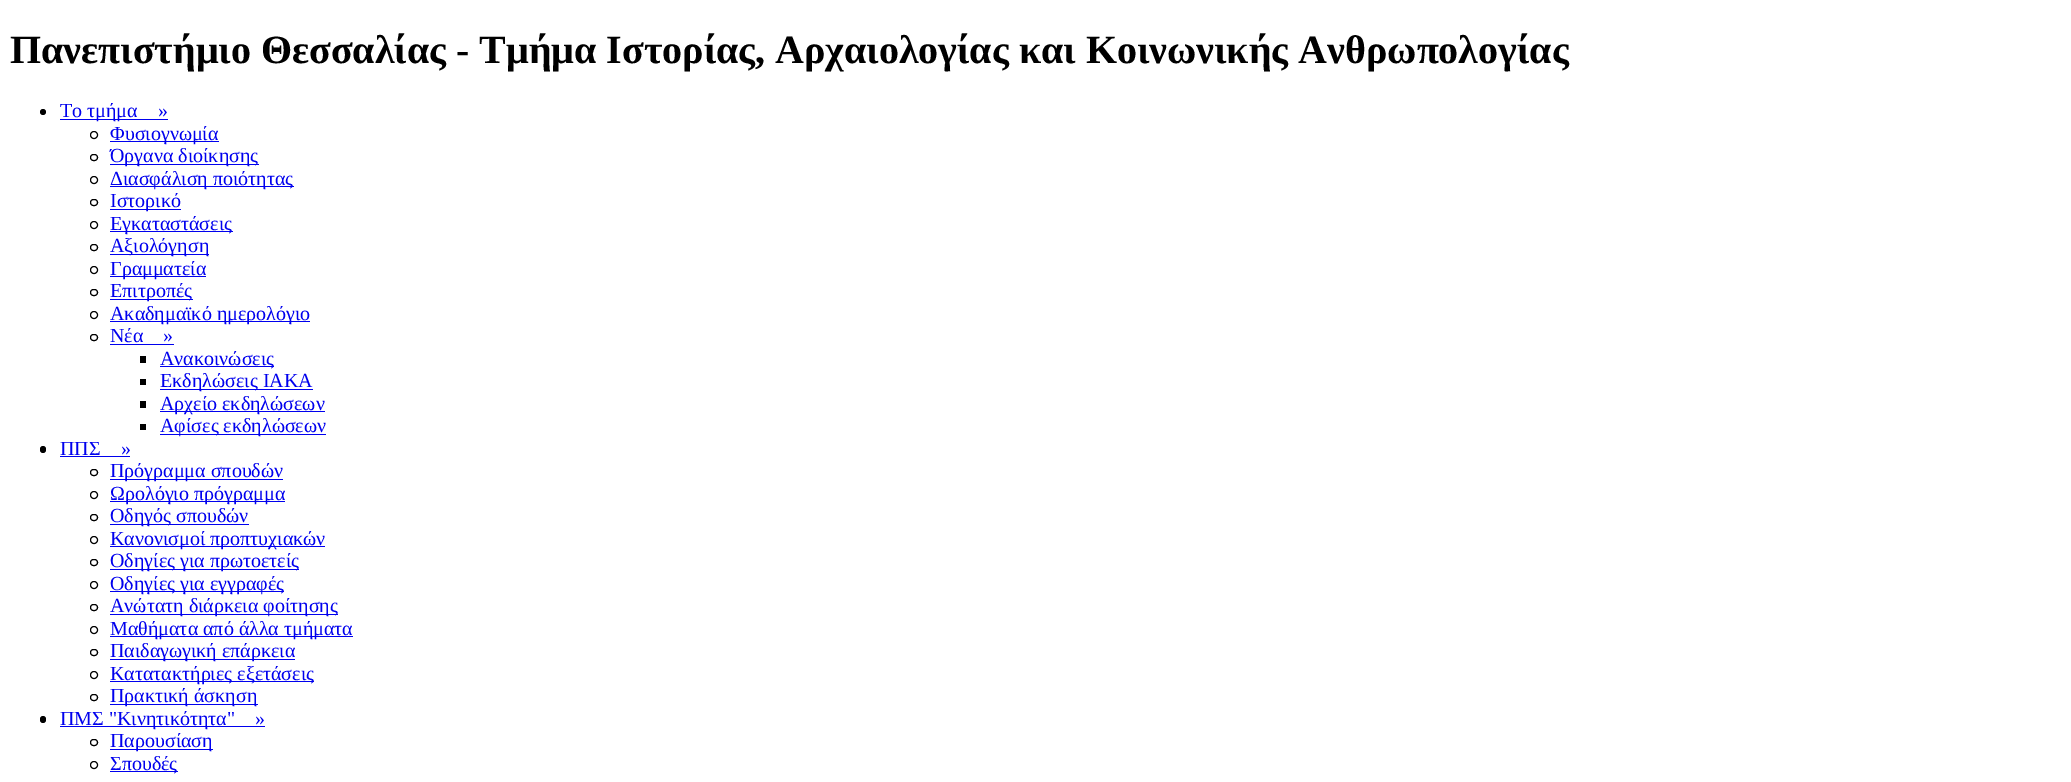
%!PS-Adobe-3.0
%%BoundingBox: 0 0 2071 782
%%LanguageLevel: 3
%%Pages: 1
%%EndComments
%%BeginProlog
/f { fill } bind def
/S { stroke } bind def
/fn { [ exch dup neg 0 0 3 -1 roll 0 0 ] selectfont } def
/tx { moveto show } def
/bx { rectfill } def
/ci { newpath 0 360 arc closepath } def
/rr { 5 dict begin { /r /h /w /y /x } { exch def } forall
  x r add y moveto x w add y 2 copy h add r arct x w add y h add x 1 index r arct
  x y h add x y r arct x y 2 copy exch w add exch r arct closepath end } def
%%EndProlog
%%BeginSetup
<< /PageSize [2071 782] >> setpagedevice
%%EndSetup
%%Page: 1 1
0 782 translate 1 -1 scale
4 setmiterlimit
1 setgray
0 0 2071 782 bx
/LiberationSerif-Bold 40 fn
0 setgray
(Πανεπιστήμιο Θεσσαλίας - Τμήμα Ιστορίας, Αρχαιολογίας και Κοινωνικής Ανθρωπολογίας) 10 63 tx
43 112 3 ci f
0 0 0.933 setrgbcolor
60 119 108 1 bx
/LiberationSerif-Regular 20 fn
(Το τμήμα) 60 117 tx
(») 158 117 tx
0 setgray
94 135 3.5 ci S
0 0 0.933 setrgbcolor
110 141 109 1 bx
(Φυσιογνωμία) 110 140 tx
0 setgray
90.5 154.5 7 6 3 rr S
0 0 0.933 setrgbcolor
110 164 149 1 bx
(Όργανα διοίκησης) 110 162 tx
0 setgray
94 180 3.5 ci S
0 0 0.933 setrgbcolor
110 186 184 1 bx
(Διασφάλιση ποιότητας) 110 185 tx
0 setgray
90.5 199.5 7 6 3 rr S
0 0 0.933 setrgbcolor
110 209 71 1 bx
(Ιστορικό) 110 207 tx
0 setgray
94 225 3.5 ci S
0 0 0.933 setrgbcolor
110 231 123 1 bx
(Εγκαταστάσεις) 110 230 tx
0 setgray
90.5 244.5 7 6 3 rr S
0 0 0.933 setrgbcolor
110 254 99 1 bx
(Αξιολόγηση) 110 252 tx
0 setgray
94 270 3.5 ci S
0 0 0.933 setrgbcolor
110 276 96 1 bx
(Γραμματεία) 110 275 tx
0 setgray
90.5 289.5 7 6 3 rr S
0 0 0.933 setrgbcolor
110 299 83 1 bx
(Επιτροπές) 110 297 tx
0 setgray
94 315 3.5 ci S
0 0 0.933 setrgbcolor
110 321 200 1 bx
(Ακαδημαϊκό ημερολόγιο) 110 320 tx
0 setgray
90.5 334.5 7 6 3 rr S
0 0 0.933 setrgbcolor
(Νέα) 110 342 tx
(») 163 342 tx
110 344 64 1 bx
0 setgray
140 356 6 7 bx
0 0 0.933 setrgbcolor
160 366 114 1 bx
(Ανακοινώσεις) 160 365 tx
0 setgray
140 379 6 6 bx
0 0 0.933 setrgbcolor
160 389 153 1 bx
(Εκδηλώσεις ΙΑΚΑ) 160 387 tx
0 setgray
140 401 6 7 bx
0 0 0.933 setrgbcolor
160 411 165 1 bx
(Αρχείο εκδηλώσεων) 160 410 tx
0 setgray
140 424 6 6 bx
0 0 0.933 setrgbcolor
160 434 166 1 bx
(Αφίσες εκδηλώσεων) 160 432 tx
0 setgray
40 446 6 7 3 rr f
0 0 0.933 setrgbcolor
(ΠΠΣ) 60 455 tx
(») 121 455 tx
60 456 70 1 bx
0 setgray
90.5 469.5 7 6 3 rr S
0 0 0.933 setrgbcolor
110 479 173 1 bx
(Πρόγραμμα σπουδών) 110 477 tx
0 setgray
94 495 3.5 ci S
0 0 0.933 setrgbcolor
110 501 175 1 bx
(Ωρολόγιο πρόγραμμα) 110 500 tx
0 setgray
90.5 514.5 7 6 3 rr S
0 0 0.933 setrgbcolor
110 524 139 1 bx
(Οδηγός σπουδών) 110 522 tx
0 setgray
94 540 3.5 ci S
0 0 0.933 setrgbcolor
110 546 215 1 bx
(Κανονισμοί προπτυχιακών) 110 545 tx
0 setgray
90.5 559.5 7 6 3 rr S
0 0 0.933 setrgbcolor
110 569 189 1 bx
(Οδηγίες για πρωτοετείς) 110 567 tx
0 setgray
94 585 3.5 ci S
0 0 0.933 setrgbcolor
110 591 174 1 bx
(Οδηγίες για εγγραφές) 110 590 tx
0 setgray
90.5 604.5 7 6 3 rr S
0 0 0.933 setrgbcolor
110 614 228 1 bx
(Ανώτατη διάρκεια φοίτησης) 110 612 tx
0 setgray
94 630 3.5 ci S
0 0 0.933 setrgbcolor
110 636 243 1 bx
(Μαθήματα από άλλα τμήματα) 110 635 tx
0 setgray
90.5 649.5 7 6 3 rr S
0 0 0.933 setrgbcolor
110 659 185 1 bx
(Παιδαγωγική επάρκεια) 110 657 tx
0 setgray
94 675 3.5 ci S
0 0 0.933 setrgbcolor
110 681 204 1 bx
(Κατατακτήριες εξετάσεις) 110 680 tx
0 setgray
90.5 694.5 7 6 3 rr S
0 0 0.933 setrgbcolor
110 704 148 1 bx
(Πρακτική άσκηση) 110 702 tx
0 setgray
40 716 6 7 3 rr f
0 0 0.933 setrgbcolor
60 726 205 1 bx
(ΠΜΣ "Κινητικότητα") 60 725 tx
(») 255 725 tx
0 setgray
90.5 739.5 7 6 3 rr S
0 0 0.933 setrgbcolor
110 749 103 1 bx
(Παρουσίαση) 110 747 tx
0 setgray
94 765 3.5 ci S
0 0 0.933 setrgbcolor
110 771 68 1 bx
(Σπουδές) 110 770 tx
showpage
%%EOF
